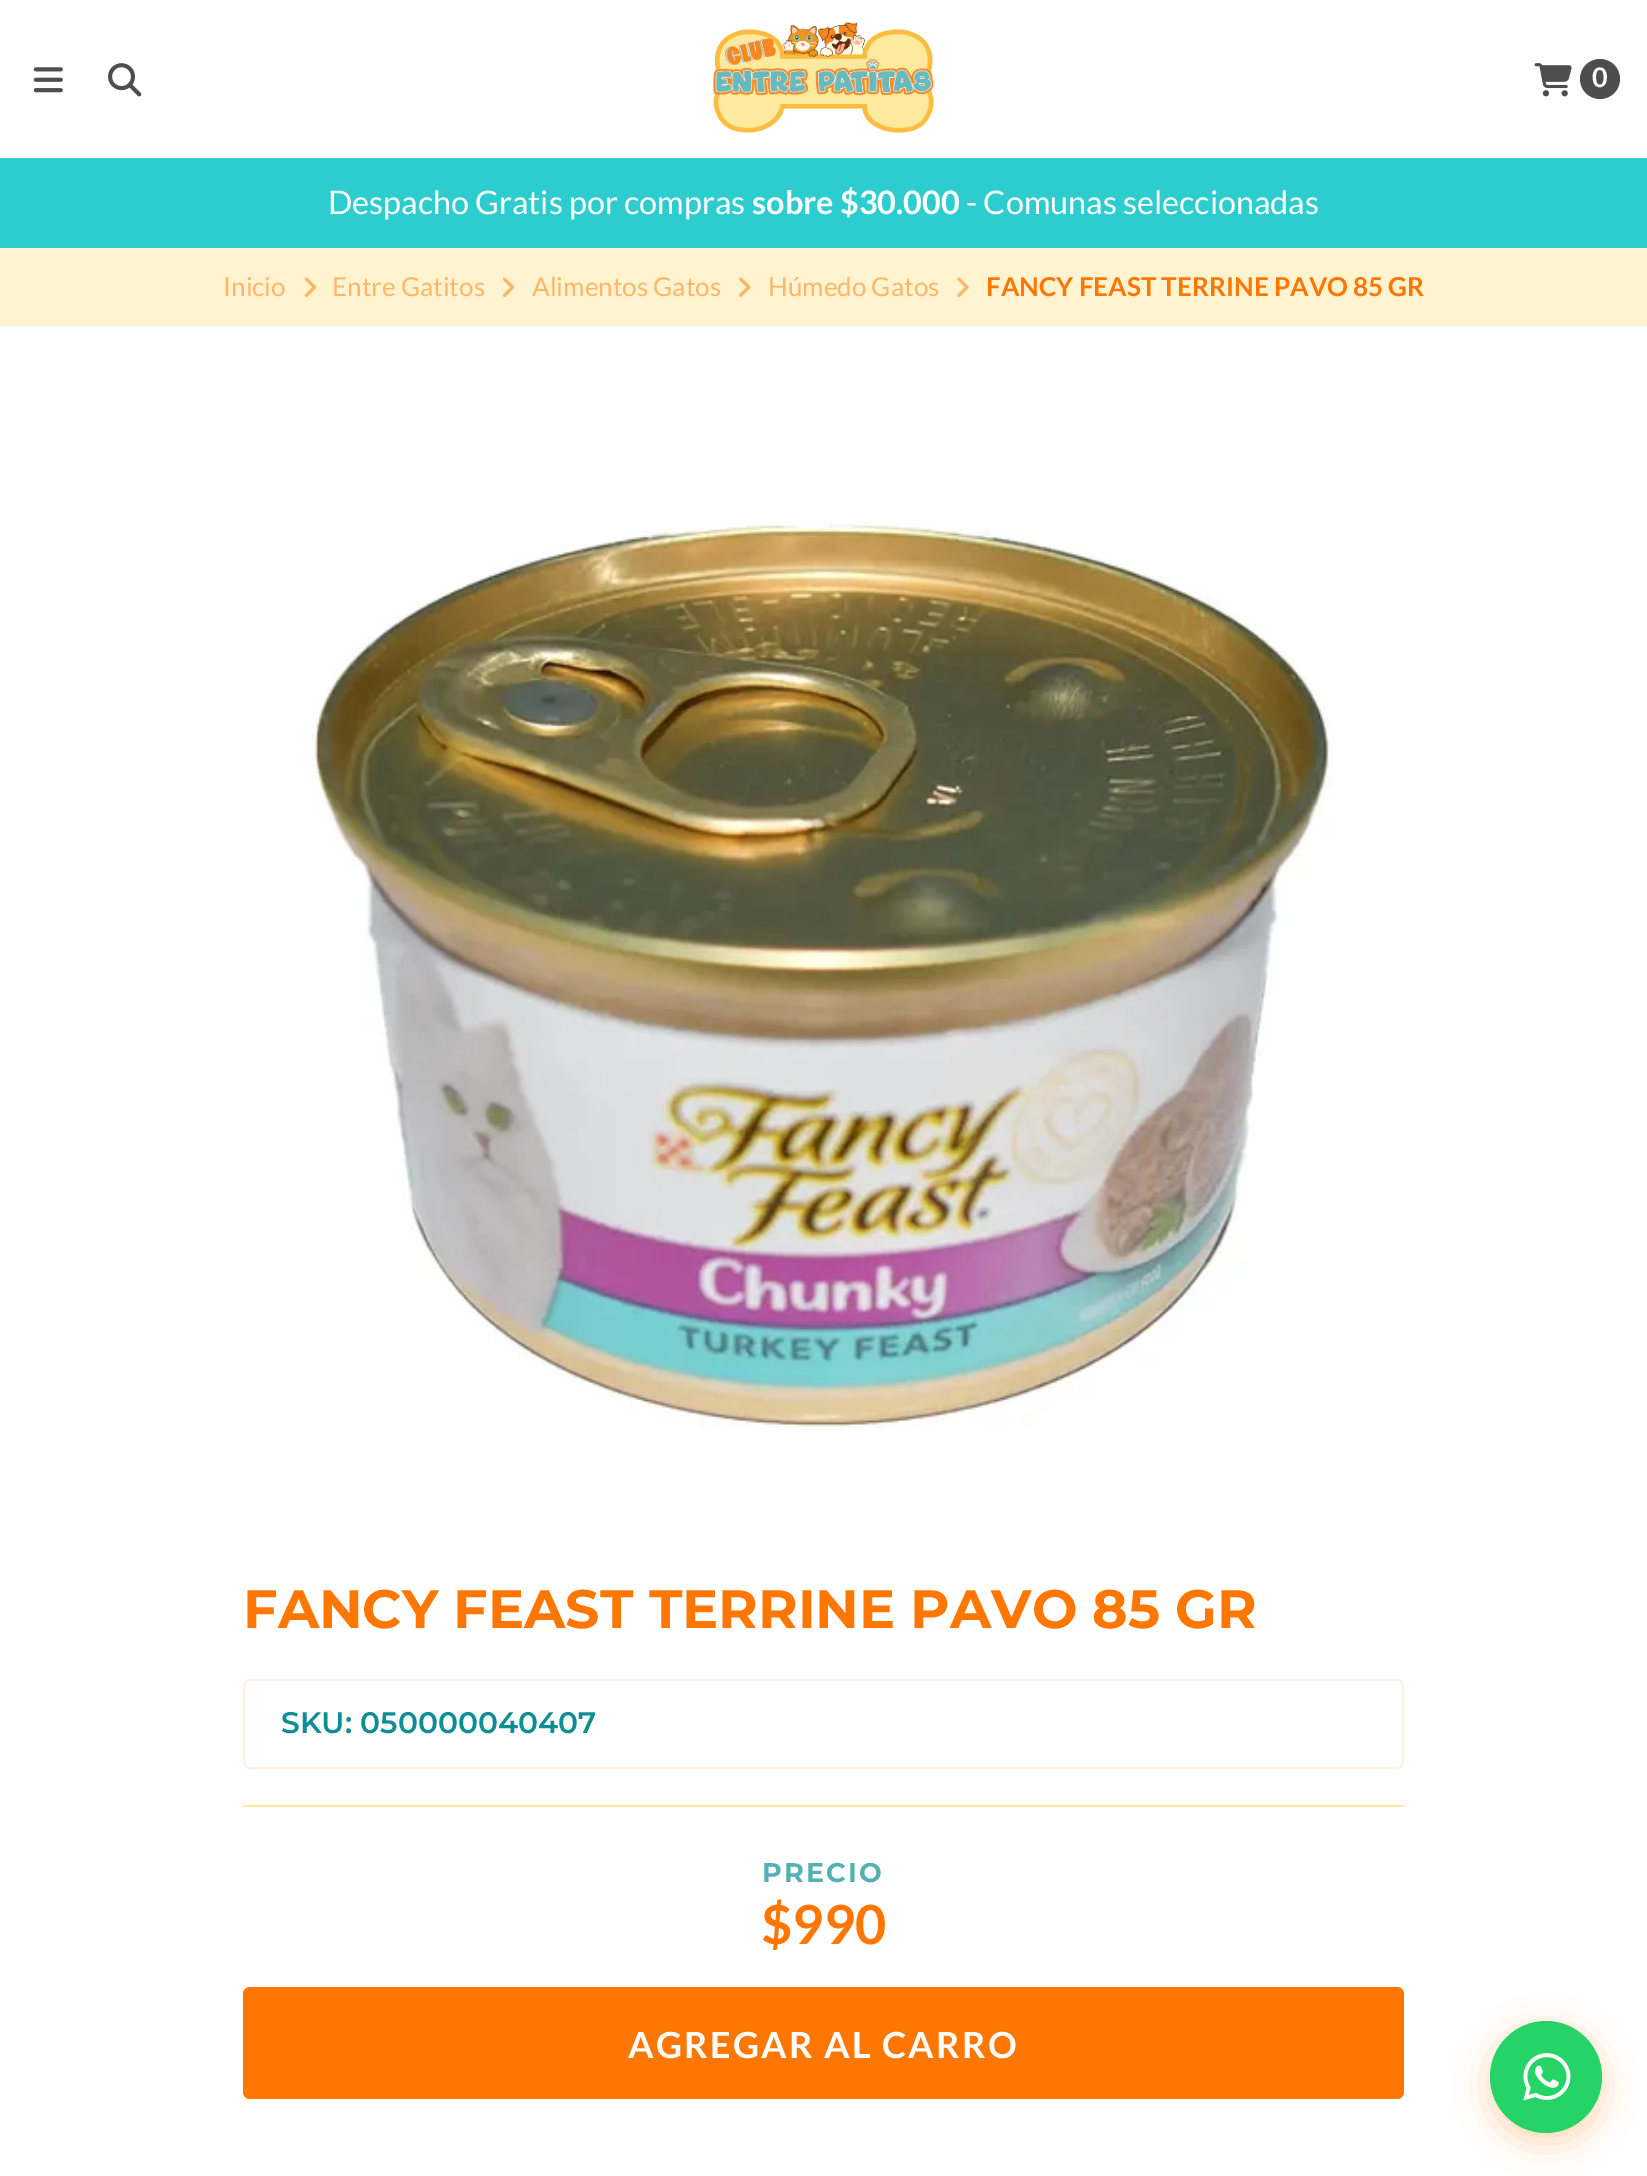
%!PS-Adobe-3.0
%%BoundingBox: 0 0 1647 2176
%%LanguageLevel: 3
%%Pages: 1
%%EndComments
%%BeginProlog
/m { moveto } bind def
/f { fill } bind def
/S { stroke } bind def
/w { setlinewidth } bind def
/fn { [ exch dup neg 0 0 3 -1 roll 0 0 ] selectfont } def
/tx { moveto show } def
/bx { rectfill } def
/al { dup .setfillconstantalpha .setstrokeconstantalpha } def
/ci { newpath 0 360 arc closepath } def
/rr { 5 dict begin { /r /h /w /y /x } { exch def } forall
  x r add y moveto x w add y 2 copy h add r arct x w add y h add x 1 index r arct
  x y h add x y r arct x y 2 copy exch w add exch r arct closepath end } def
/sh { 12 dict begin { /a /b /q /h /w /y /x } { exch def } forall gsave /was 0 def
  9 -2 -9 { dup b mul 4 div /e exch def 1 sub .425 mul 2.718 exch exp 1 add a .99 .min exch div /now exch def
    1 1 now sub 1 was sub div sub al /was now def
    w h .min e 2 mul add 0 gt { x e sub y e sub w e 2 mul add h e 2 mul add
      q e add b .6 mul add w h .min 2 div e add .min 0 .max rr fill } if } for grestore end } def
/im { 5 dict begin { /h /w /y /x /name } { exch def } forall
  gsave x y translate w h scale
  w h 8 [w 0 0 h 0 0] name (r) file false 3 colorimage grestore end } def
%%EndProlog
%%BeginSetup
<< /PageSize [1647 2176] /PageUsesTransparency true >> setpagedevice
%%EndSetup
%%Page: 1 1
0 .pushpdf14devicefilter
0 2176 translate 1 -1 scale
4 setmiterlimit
1 setgray
0 0 1647 2176 bx
1 0.973 0.949 setrgbcolor
0 155 1647 2 bx
(image0.raw) 33 67 30 26 im
(image1.raw) 108 63 34 34 im
(image2.raw) 713 22 221 112 im
(image3.raw) 1534 63 38 34 im
0.302 setgray
1600 79 20 ci f
/Lato-Bold 27 fn
0.992 setgray
(0) 1592 87 tx
0.176 0.804 0.812 setrgbcolor
0 158 1647 90 bx
/Lato-Regular 32.4 fn
0.992 setgray
(Despacho Gratis por compras) 328 214 tx
/Lato-Bold 32.4 fn
(sobre $30.000) 752 214 tx
/Lato-Regular 32.4 fn
(- Comunas seleccionadas) 966 214 tx
1 0.957 0.812 setrgbcolor
0 248 1647 78 bx
/Lato-Regular 26.1 fn
1 0.714 0.408 setrgbcolor
(Inicio) 223 296 tx
(image4.raw) 304 277 13 20 im
(Entre Gatitos) 332 296 tx
(image4.raw) 502 277 13 20 im
(Alimentos Gatos) 532 296 tx
(image5.raw) 739 277 12 20 im
(Húmedo Gatos) 768 296 tx
(image6.raw) 957 277 12 20 im
/Lato-Bold 26.1 fn
1 0.467 0.004 setrgbcolor
(FANCY FEAST TERRINE PAVO 85 GR) 986 296 tx
(image7.raw) 311 523 1022 906 im
/Montserrat-Bold 54 fn
(FANCY FEAST TERRINE PAVO 85 GR) 243 1628 tx
1 0.945 0.902 setrgbcolor
2 w
244 1680 1159 88 6 rr S
/Montserrat-SemiBold 29.75 fn
0.047 0.557 0.573 setrgbcolor
(SKU: 050000040407) 281 1733 tx
1 0.914 0.62 setrgbcolor
243 1805 1161 2 bx
/Montserrat-Bold 27 fn
0.333 0.69 0.702 setrgbcolor
762 1882 m 2.25 0 (PRECIO) ashow
/Lato-Bold 54 fn
1 0.467 0.004 setrgbcolor
($990) 761 1944 tx
243 1987 1161 112 7 rr f
/Lato-Bold 36 fn
0.992 setgray
628 2058 m 2.25 0 (AGREGAR AL CARRO) ashow
1 0.467 0.004 setrgbcolor
1490 2030 112 112 56 17 0.3 sh
0.145 0.827 0.4 setrgbcolor
1546 2077 56 ci f
(image8.raw) 1523 2053 48 48 im
.poppdf14devicefilter showpage
%%EOF
